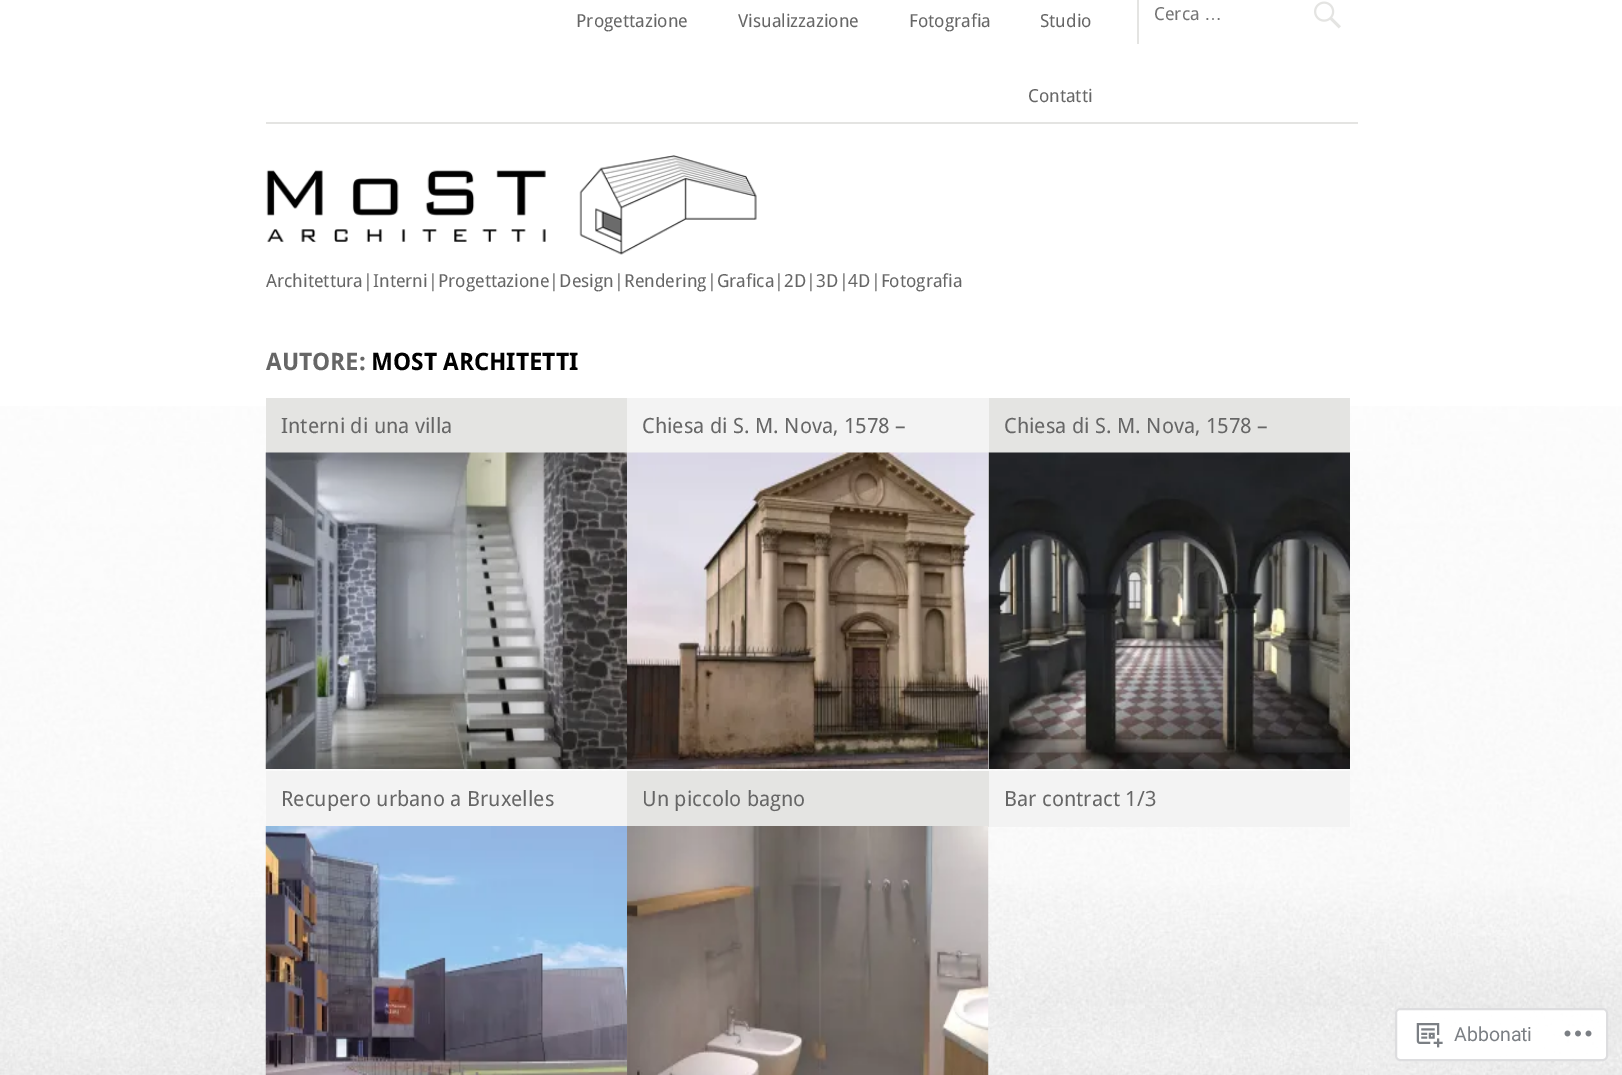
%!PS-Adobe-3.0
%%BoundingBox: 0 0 1622 1075
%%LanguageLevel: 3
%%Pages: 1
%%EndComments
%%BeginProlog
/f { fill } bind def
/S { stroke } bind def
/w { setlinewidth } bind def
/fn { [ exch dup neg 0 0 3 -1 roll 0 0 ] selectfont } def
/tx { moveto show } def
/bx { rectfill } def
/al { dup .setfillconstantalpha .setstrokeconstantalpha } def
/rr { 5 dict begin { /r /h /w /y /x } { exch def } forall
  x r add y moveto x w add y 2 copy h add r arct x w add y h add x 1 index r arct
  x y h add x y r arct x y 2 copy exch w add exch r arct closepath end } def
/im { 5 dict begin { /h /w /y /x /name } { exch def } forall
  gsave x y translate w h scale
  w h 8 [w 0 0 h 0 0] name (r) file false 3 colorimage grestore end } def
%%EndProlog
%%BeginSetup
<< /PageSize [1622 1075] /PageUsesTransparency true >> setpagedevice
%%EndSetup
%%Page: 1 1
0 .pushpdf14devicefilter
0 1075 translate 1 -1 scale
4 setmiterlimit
1 setgray
0 0 1622 1075 bx
(image0.raw) 0 406 1622 669 im
0.894 0.894 0.886 setrgbcolor
266 122 1092 2 bx
/DroidSans-Regular 18 fn
0.4 setgray
(Progettazione) 576 27 tx
(Visualizzazione) 738 27 tx
(Fotografia) 909 27 tx
(Studio) 1040 27 tx
(Contatti) 1028 102 tx
0.894 0.894 0.886 setrgbcolor
1137 0 2 44 bx
0.459 setgray
(Cerca) 1154 20 tx
/LiberationSans-Regular 18 fn
(…) 1204 20 tx
(image1.raw) 1314 1 27 28 im
(image2.raw) 266 155 491 100 im
/DroidSans-Regular 18 fn
0.4 setgray
(Architettura|Interni|Progettazione|Design|Rendering|Grafica|2D|3D|4D|Fotografia) 266 287 tx
/DroidSans-Bold 24 fn
(AUTORE:) 266 370 tx
0 setgray
(MOST ARCHITETTI) 371 370 tx
0.894 0.894 0.886 setrgbcolor
266 398 361 55 bx
/DroidSans-Regular 21 fn
0.4 setgray
(Interni di una villa) 281 433 tx
(image3.raw) 265 452 362 317 im
0.953 setgray
627 398 362 55 bx
0.4 setgray
(Chiesa di S. M. Nova, 1578 –) 642 433 tx
(image4.raw) 627 452 362 317 im
0.894 0.894 0.886 setrgbcolor
989 398 361 55 bx
0.4 setgray
(Chiesa di S. M. Nova, 1578 –) 1004 433 tx
(image5.raw) 988 452 362 317 im
0.953 setgray
266 771 361 55 bx
0.4 setgray
(Recupero urbano a Bruxelles) 281 806 tx
(image6.raw) 265 826 362 249 im
0.894 0.894 0.886 setrgbcolor
627 771 362 56 bx
0.4 setgray
(Un piccolo bagno) 642 806 tx
(image7.raw) 627 826 362 249 im
0.953 setgray
989 771 361 56 bx
0.4 setgray
(Bar contract 1/3) 1004 806 tx
0.98 al
1 setgray
1395 1008 213 53 5 rr f
0.863 0.863 0.871 setrgbcolor
2 w
1396 1009 211 51 4 rr S
1 al
(image8.raw) 1416 1023 27 25 im
/Roboto-Regular 19.5 fn
0.482 0.498 0.518 setrgbcolor
(Abbonati) 1454 1041 tx
(image9.raw) 1564 1030 28 7 im
.poppdf14devicefilter showpage
%%EOF
